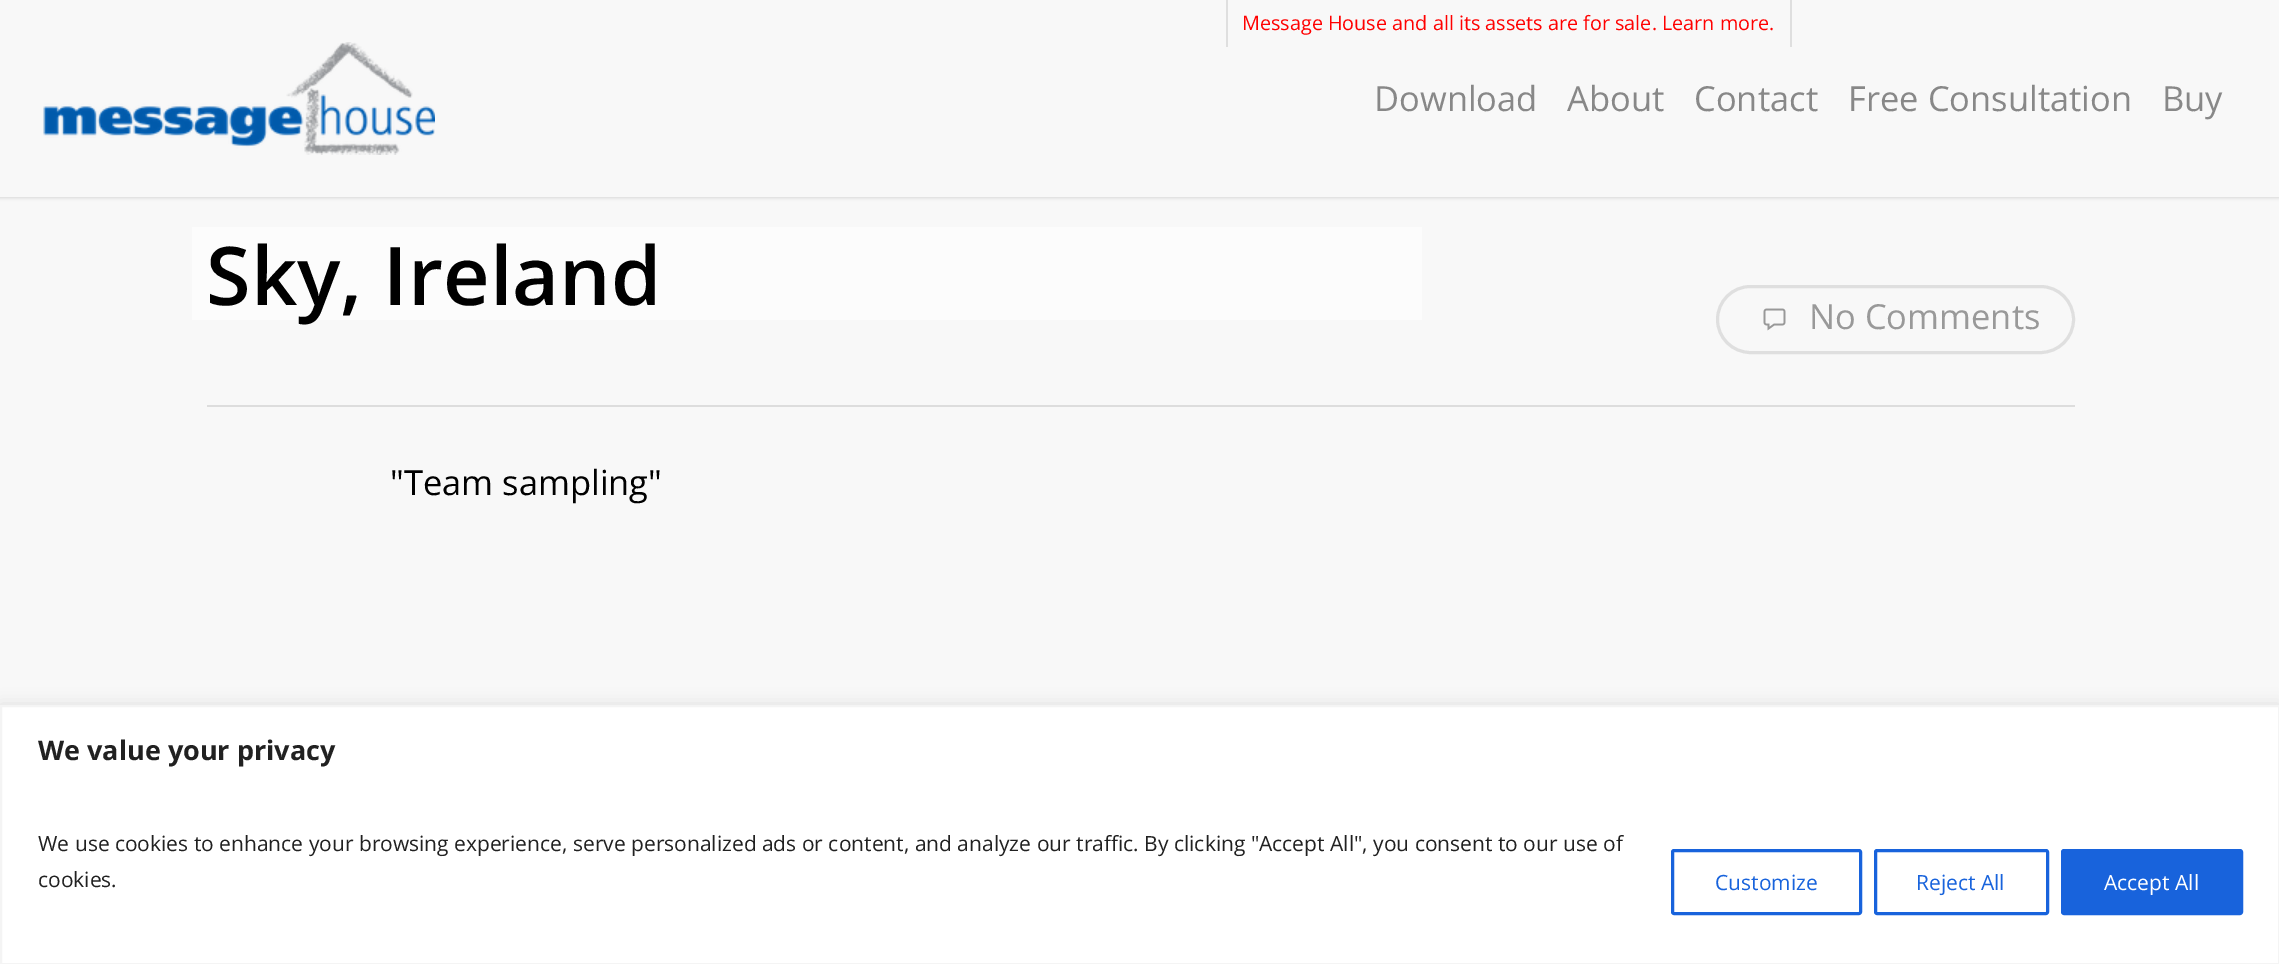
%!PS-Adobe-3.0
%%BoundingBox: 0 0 2279 964
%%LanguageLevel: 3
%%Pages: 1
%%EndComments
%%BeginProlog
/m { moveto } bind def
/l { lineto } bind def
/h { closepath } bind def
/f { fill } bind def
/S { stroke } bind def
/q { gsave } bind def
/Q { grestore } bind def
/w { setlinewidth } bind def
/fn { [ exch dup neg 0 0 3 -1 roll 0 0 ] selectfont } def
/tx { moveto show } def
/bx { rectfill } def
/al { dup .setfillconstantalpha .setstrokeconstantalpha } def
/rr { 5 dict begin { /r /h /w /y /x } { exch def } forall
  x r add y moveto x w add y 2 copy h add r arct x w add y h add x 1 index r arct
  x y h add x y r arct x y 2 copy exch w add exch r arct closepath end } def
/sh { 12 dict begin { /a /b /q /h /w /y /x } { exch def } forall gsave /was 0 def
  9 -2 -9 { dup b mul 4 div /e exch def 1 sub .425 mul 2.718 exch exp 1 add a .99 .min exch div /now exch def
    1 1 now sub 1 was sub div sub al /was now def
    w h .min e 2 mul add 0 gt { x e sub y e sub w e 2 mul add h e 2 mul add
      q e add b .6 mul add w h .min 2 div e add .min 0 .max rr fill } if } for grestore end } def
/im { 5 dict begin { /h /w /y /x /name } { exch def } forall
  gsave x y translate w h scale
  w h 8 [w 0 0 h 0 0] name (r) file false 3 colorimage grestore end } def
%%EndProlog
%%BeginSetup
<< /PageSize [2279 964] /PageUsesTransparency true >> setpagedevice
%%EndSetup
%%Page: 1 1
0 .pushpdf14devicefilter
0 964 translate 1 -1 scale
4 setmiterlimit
0.973 setgray
0 0 2279 964 bx
0 setgray
0 0 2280 197 0 2 0.22 sh
0.973 setgray
0 0 2279 197 bx
0.875 setgray
1790 0 2 47 bx
1226 0 2 47 bx
/OpenSans-Regular 19.8 fn
1 0 0 setrgbcolor
(Message House and all its assets are for sale. Learn more.) 1242 30 tx
(image0.raw) 43 42 392 113 im
/OpenSans-Regular 34.5 fn
0.533 setgray
(Download) 1374 111 tx
(About) 1567 111 tx
(Contact) 1694 111 tx
(Free Consultation) 1848 111 tx
(Buy) 2162 111 tx
0.867 setgray
207 405 1868 2 bx
0.988 setgray
192 227 m 192 320 l 1392 320 l 207 320 l 207 227 l h f
222 320 m 1422 320 l 1422 227 l 1407 227 l 1407 320 l h f
207 227 1200 93 bx
/OpenSans-SemiBold 81 fn
0 setgray
(Sky, Ireland) 206 305 tx
0.875 setgray
3 w
1717.5 286.5 356 66 33 rr S
(image1.raw) 1763 308 23 23 im
/OpenSans-Regular 34.5 fn
0.6 setgray
(No Comments) 1809 329 tx
0 setgray
("Team sampling") 390 495 tx
0.675 0.671 0.671 setrgbcolor
0 704 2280 259 0 7.5 0.3 sh
1 setgray
1 706 m 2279 706 l 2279 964 l 1 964 l h q f Q
0.957 setgray
2 w
S
/OpenSans-Bold 27 fn
0.129 setgray
(We value your privacy) 38 760 tx
/OpenSans-Regular 21 fn
(We use cookies to enhance your browsing experience, serve personalized ads or content, and analyze our traffic. By clicking "Accept All", you consent to our use of) 38 851 tx
(cookies.) 38 887 tx
0.094 0.388 0.863 setrgbcolor
3 w
1672.5 850.5 188 63 1.5 rr S
(Customize) 1715 890 tx
1875.5 850.5 172 63 1.5 rr S
(Reject All) 1916 890 tx
2062.5 850.5 179 63 1.5 rr q f Q
S
1 setgray
(Accept All) 2104 890 tx
.poppdf14devicefilter showpage
%%EOF
